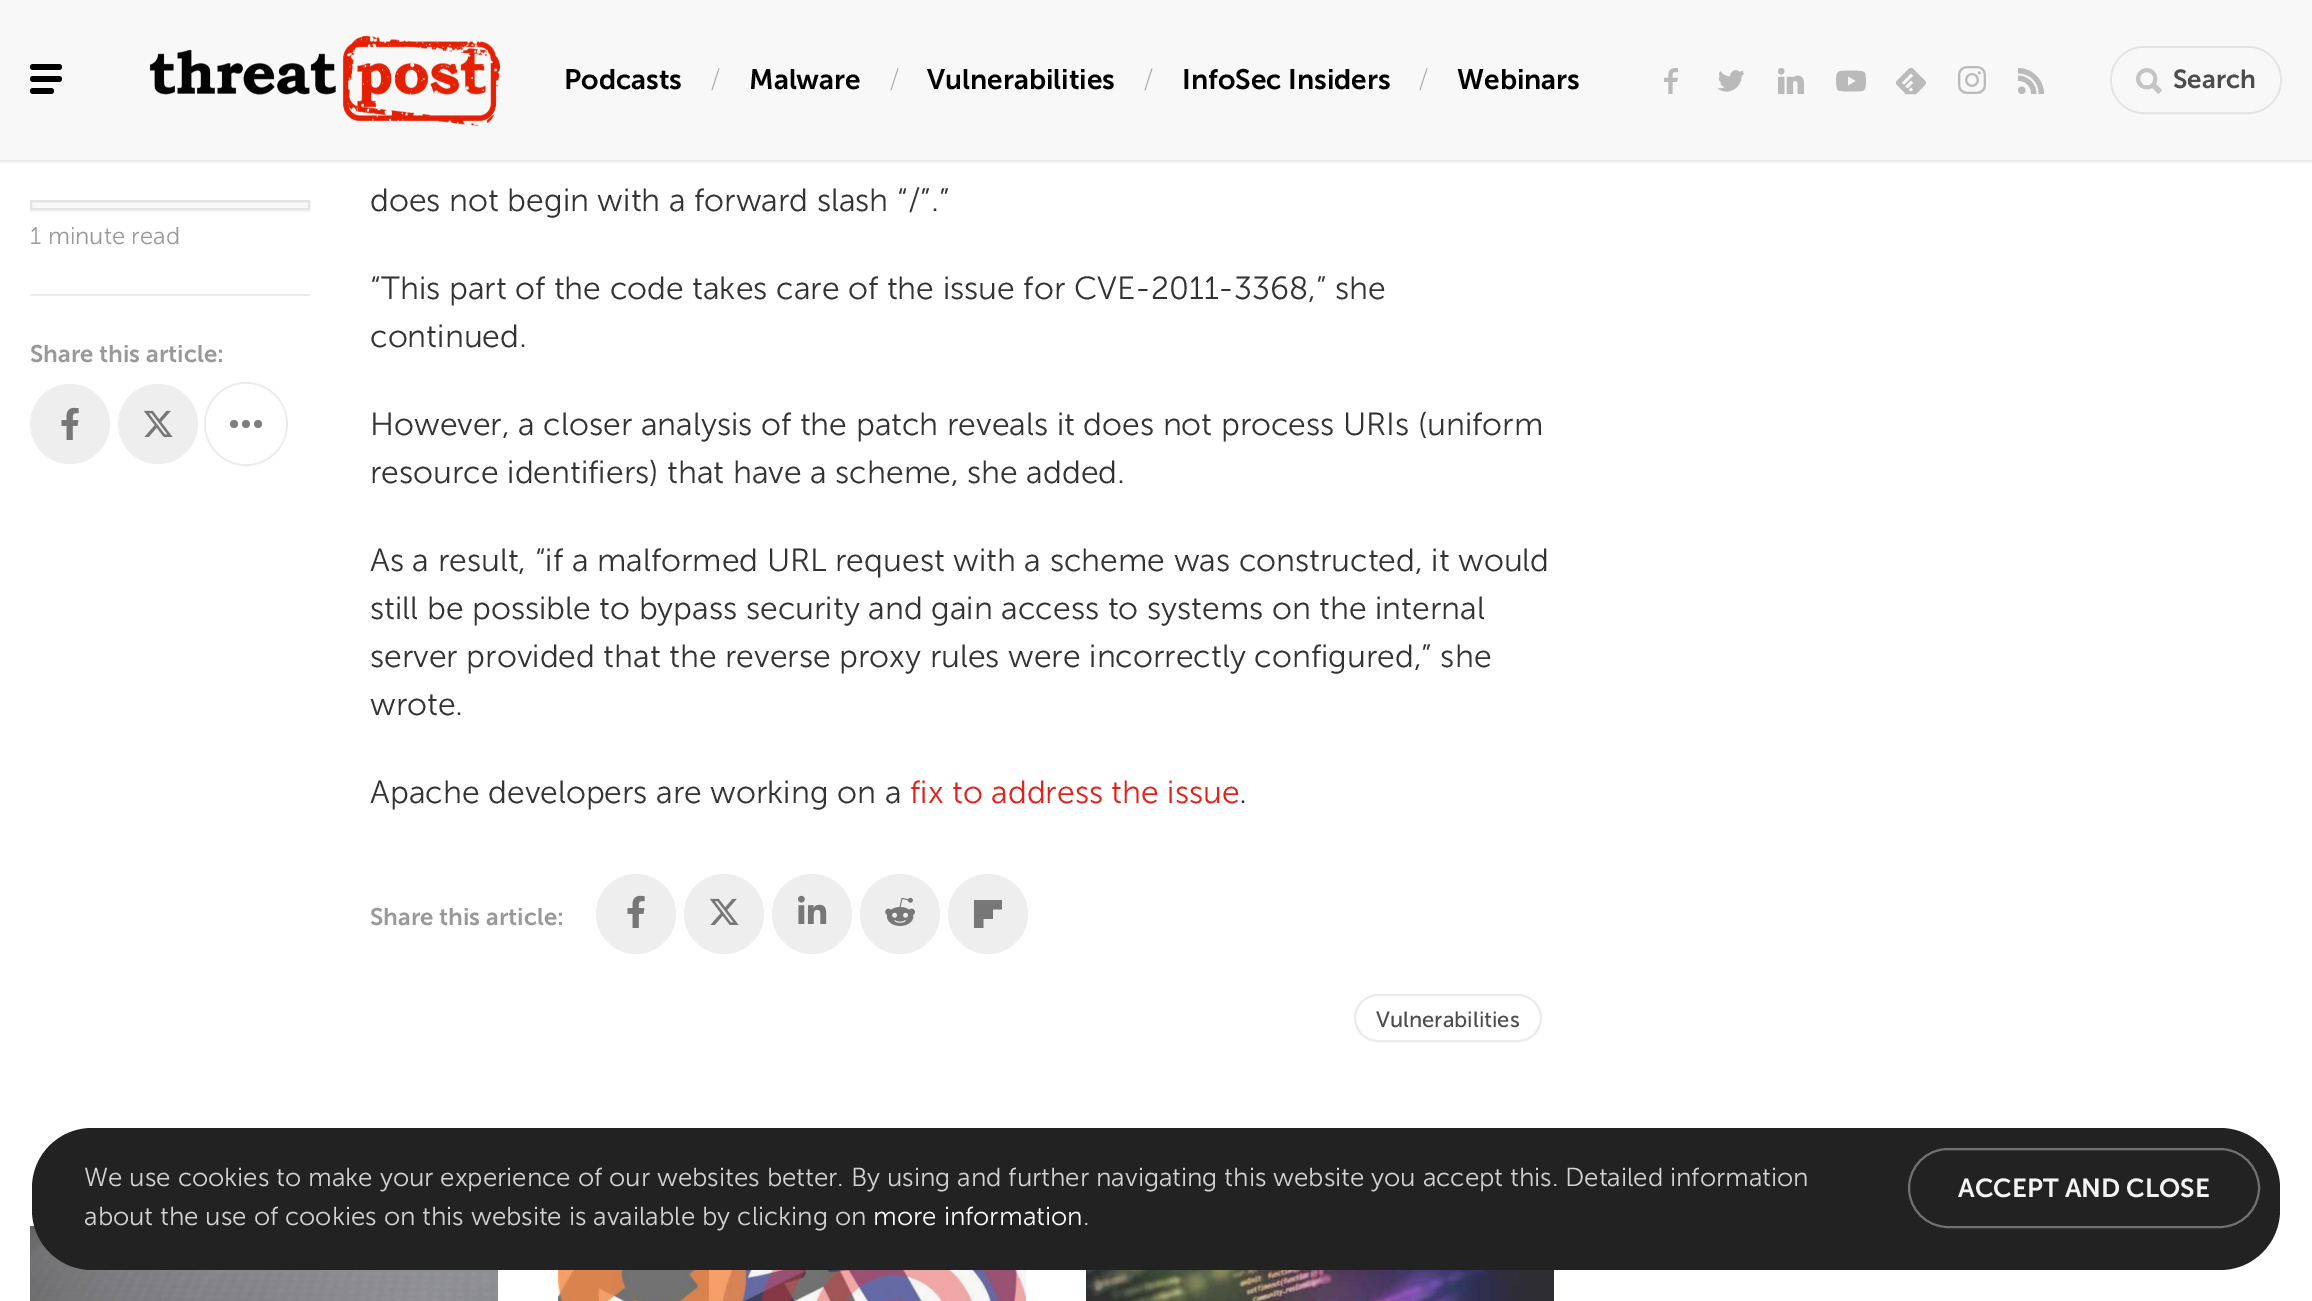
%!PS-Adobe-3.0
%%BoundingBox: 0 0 2312 1301
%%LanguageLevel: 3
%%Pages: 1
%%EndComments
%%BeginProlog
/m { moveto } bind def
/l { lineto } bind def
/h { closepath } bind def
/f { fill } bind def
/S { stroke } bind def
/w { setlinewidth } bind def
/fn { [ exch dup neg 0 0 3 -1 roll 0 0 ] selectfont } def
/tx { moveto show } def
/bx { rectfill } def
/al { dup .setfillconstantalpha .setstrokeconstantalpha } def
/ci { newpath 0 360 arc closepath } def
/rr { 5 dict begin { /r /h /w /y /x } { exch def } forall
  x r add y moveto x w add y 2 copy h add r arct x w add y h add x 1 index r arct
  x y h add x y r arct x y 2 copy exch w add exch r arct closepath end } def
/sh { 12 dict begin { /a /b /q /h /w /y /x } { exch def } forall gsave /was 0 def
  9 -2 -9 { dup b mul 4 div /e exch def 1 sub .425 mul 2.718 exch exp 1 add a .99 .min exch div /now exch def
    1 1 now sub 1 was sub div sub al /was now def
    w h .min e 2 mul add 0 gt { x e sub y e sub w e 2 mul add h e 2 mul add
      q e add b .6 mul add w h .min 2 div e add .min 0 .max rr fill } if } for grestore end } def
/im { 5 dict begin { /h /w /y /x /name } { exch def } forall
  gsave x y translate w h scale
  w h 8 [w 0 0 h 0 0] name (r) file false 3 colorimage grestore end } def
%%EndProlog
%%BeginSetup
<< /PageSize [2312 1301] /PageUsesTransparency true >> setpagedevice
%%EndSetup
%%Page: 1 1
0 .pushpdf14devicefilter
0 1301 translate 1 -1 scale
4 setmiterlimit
1 setgray
0 0 2312 1301 bx
0 setgray
0 2 2312 160 0 1 0.1 sh
0.973 setgray
0 0 2312 160 bx
0 setgray
30 64 32 6 3 rr f
30 76 32 6 3 rr f
30 88 24 6 3 rr f
(image0.raw) 150 35 350 91 im
/MuseoSans-SemiBold 28 fn
(Podcasts) 564 89 tx
/MuseoSans-ExtraLight 28 fn
0.667 setgray
(/) 710 89 tx
/MuseoSans-SemiBold 28 fn
0 setgray
(Malware) 749 89 tx
/MuseoSans-ExtraLight 28 fn
0.667 setgray
(/) 889 89 tx
/MuseoSans-SemiBold 28 fn
0 setgray
(Vulnerabilities) 927 89 tx
/MuseoSans-ExtraLight 28 fn
0.667 setgray
(/) 1143 89 tx
/MuseoSans-SemiBold 28 fn
0 setgray
(InfoSec Insiders) 1182 89 tx
/MuseoSans-ExtraLight 28 fn
0.667 setgray
(/) 1418 89 tx
/MuseoSans-SemiBold 28 fn
0 setgray
(Webinars) 1457 89 tx
(image1.raw) 1664 68 14 26 im
(image2.raw) 1718 70 26 22 im
(image3.raw) 1778 68 26 26 im
(image4.raw) 1836 70 30 22 im
(image5.raw) 1896 67 30 28 im
(image6.raw) 1958 66 28 28 im
(image7.raw) 2018 68 26 26 im
0.894 setgray
2 w
2111 47 170 66 33 rr S
0.973 setgray
2112 48 168 64 32 rr f
(image8.raw) 2136 68 26 26 im
/MuseoSans-SemiBold 26 fn
0.302 setgray
(Search) 2173 88 tx
0 setgray
30 202 280 10 0 1 0.05 sh
0.973 setgray
32 203 276 5 bx
0.894 setgray
31 201 278 8 rectstroke
/MuseoSans-Light 24 fn
0.6 setgray
(1 minute read) 30 244 tx
0.922 setgray
30 294 280 2 bx
/MuseoSans-SemiBold 24 fn
0.6 setgray
(Share this article:) 30 362 tx
0.933 setgray
70 424 40 ci f
(image9.raw) 61 407 18 33 im
158 424 40 ci f
(image10.raw) 144 410 29 27 im
0.922 setgray
246 424 41 ci S
1 setgray
246 424 40 ci f
(image11.raw) 230 420 32 8 im
/MuseoSans-Light 32 fn
0.2 setgray
(does not begin with a forward slash “/”.”) 370 211 tx
(“This part of the code takes care of the issue for CVE-2011-3368,” she) 370 299 tx
(continued.) 370 347 tx
(However, a closer analysis of the patch reveals it does not process URIs \(uniform) 370 435 tx
(resource identifiers\) that have a scheme, she added.) 370 483 tx
(As a result, “if a malformed URL request with a scheme was constructed, it would) 370 571 tx
(still be possible to bypass security and gain access to systems on the internal) 370 619 tx
(server provided that the reverse proxy rules were incorrectly configured,” she) 370 667 tx
(wrote.) 370 715 tx
(Apache developers are working on a) 370 803 tx
0.886 0.129 0.11 setrgbcolor
(fix to address the issue) 910 803 tx
0.2 setgray
(.) 1239 803 tx
/MuseoSans-SemiBold 24 fn
0.6 setgray
(Share this article:) 370 925 tx
0.933 setgray
636 914 40 ci f
(image9.raw) 627 895 18 33 im
724 914 40 ci f
(image10.raw) 710 898 29 27 im
812 914 40 ci f
(image12.raw) 798 895 29 29 im
900 914 40 ci f
(image13.raw) 885 897 30 29 im
988 914 40 ci f
0.467 setgray
1002 900 m 974 900 l 974 928 l 983.5 928 l 983.5 919 l 993 919 l 993 909.5 l 1002 909.5 l h f
0.922 setgray
1355 995 186 46 23 rr S
/MuseoSans-Regular 22 fn
0.302 setgray
(Vulnerabilities) 1376 1027 tx
(image14.raw) 30 1226 468 75 im
(image15.raw) 558 1270 468 31 im
(image16.raw) 1086 1270 468 31 im
0.133 setgray
32 1128 2248 142 60 rr f
/MuseoSans-Light 26 fn
0.827 setgray
(We use cookies to make your experience of our websites better. By using and further navigating this website you accept this. Detailed information) 84 1186 tx
(about the use of cookies on this website is available by clicking on) 84 1225 tx
1 setgray
(more information) 873 1225 tx
0.827 setgray
(.) 1083 1225 tx
0.439 setgray
1909 1149 350 78 39 rr S
/MuseoSans-SemiBold 26 fn
0.957 setgray
(ACCEPT AND CLOSE) 1958 1197 tx
.poppdf14devicefilter showpage
%%EOF
